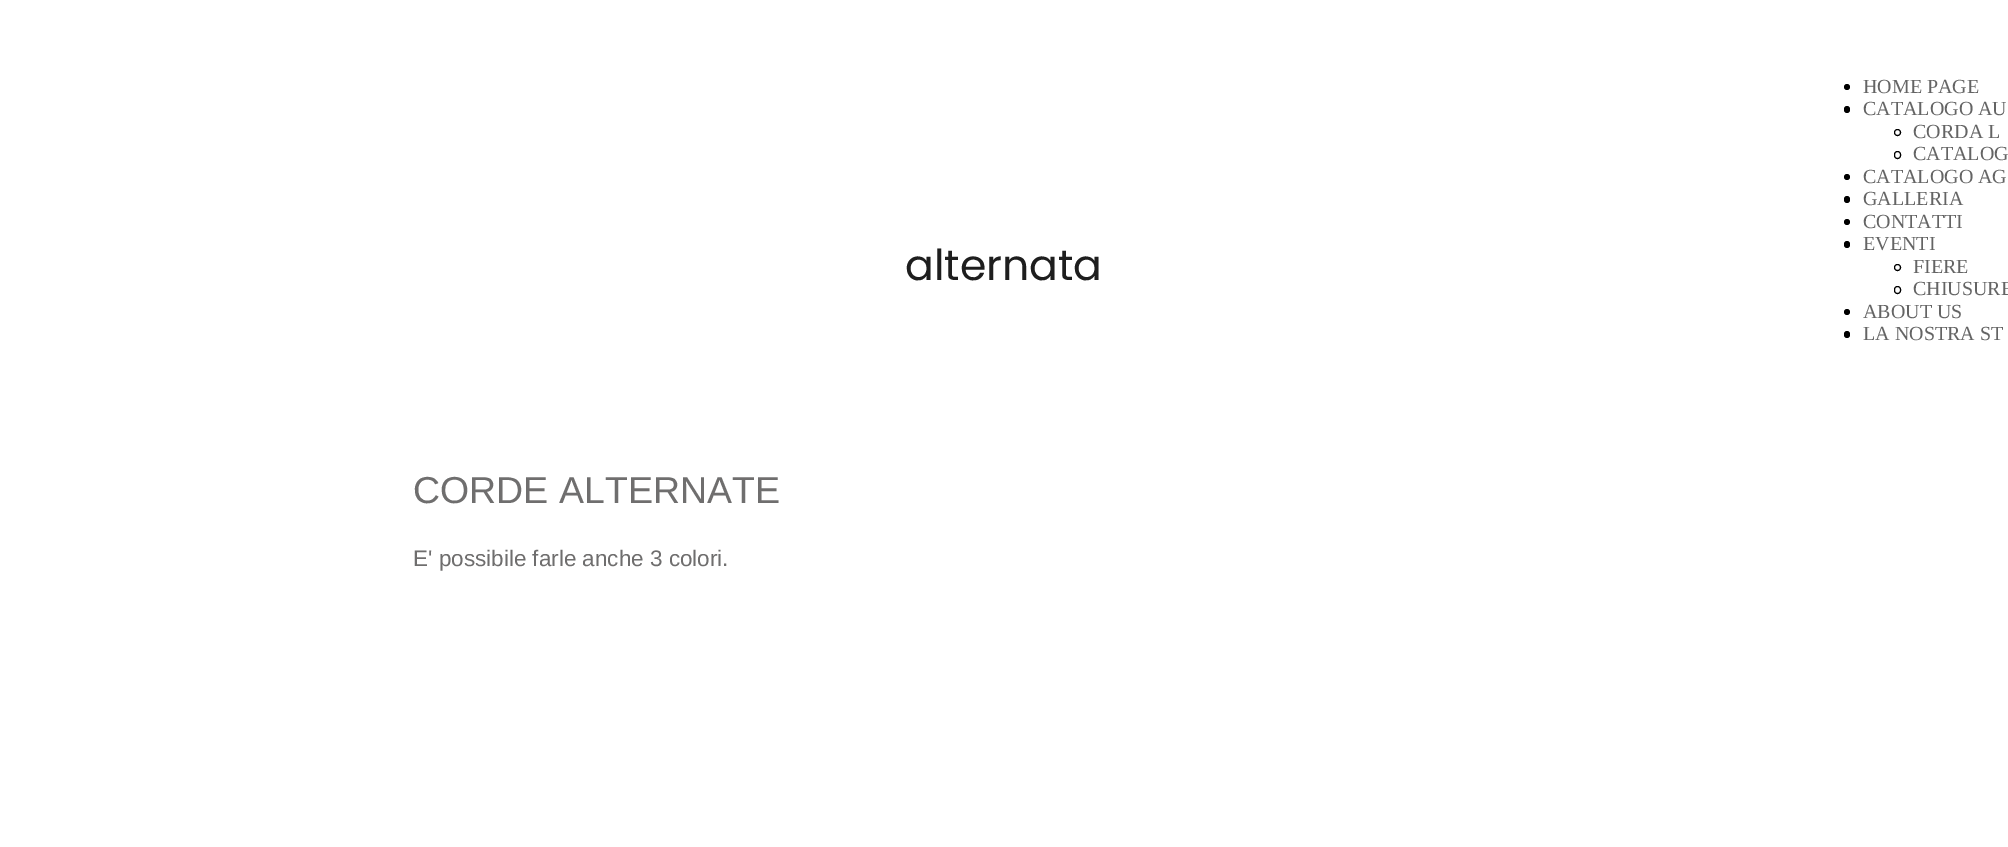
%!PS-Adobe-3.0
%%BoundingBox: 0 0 2008 847
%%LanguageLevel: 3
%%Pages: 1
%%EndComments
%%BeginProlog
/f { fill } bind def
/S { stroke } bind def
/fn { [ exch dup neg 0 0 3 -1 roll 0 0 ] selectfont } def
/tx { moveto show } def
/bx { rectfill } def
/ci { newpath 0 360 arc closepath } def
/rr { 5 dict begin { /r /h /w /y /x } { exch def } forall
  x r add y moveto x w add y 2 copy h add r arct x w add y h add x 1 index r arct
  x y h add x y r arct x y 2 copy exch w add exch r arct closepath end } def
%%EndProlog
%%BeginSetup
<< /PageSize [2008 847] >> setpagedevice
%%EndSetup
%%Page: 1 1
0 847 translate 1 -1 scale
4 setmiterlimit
1 setgray
0 0 2008 847 bx
/Poppins-Regular 42.5 fn
0.118 setgray
(alternata) 905 280 tx
0 setgray
1847 87 3 ci f
/LiberationSerif-Regular 20 fn
0.392 setgray
(HOME PAGE) 1863 93 tx
0 setgray
1844 106 6 7 3 rr f
0.392 setgray
(CATALOGO AU) 1863 115 tx
0 setgray
1897.5 132.5 3 ci S
0.392 setgray
(CORDA L) 1913 138 tx
0 setgray
1894.5 151.5 6 7 3 rr S
0.392 setgray
(CATALOG) 1913 160 tx
0 setgray
1847 177 3 ci f
0.392 setgray
(CATALOGO AG) 1863 183 tx
0 setgray
1844 196 6 7 3 rr f
0.392 setgray
(GALLERIA) 1863 205 tx
0 setgray
1847 222 3 ci f
0.392 setgray
(CONTATTI) 1863 228 tx
0 setgray
1844 241 6 7 3 rr f
0.392 setgray
(EVENTI) 1863 250 tx
0 setgray
1897.5 267.5 3 ci S
0.392 setgray
(FIERE) 1913 273 tx
0 setgray
1894.5 286.5 6 7 3 rr S
0.392 setgray
(CHIUSURE) 1913 295 tx
0 setgray
1847 312 3 ci f
0.392 setgray
(ABOUT US) 1863 318 tx
0 setgray
1844 331 6 7 3 rr f
0.392 setgray
(LA NOSTRA ST) 1863 340 tx
/Arimo-Regular 37.5 fn
0.435 0.431 0.431 setrgbcolor
(CORDE ALTERNATE) 413 503 tx
/Arimo-Regular 22.5 fn
(E' possibile farle anche 3 colori.) 413 566 tx
showpage
%%EOF
